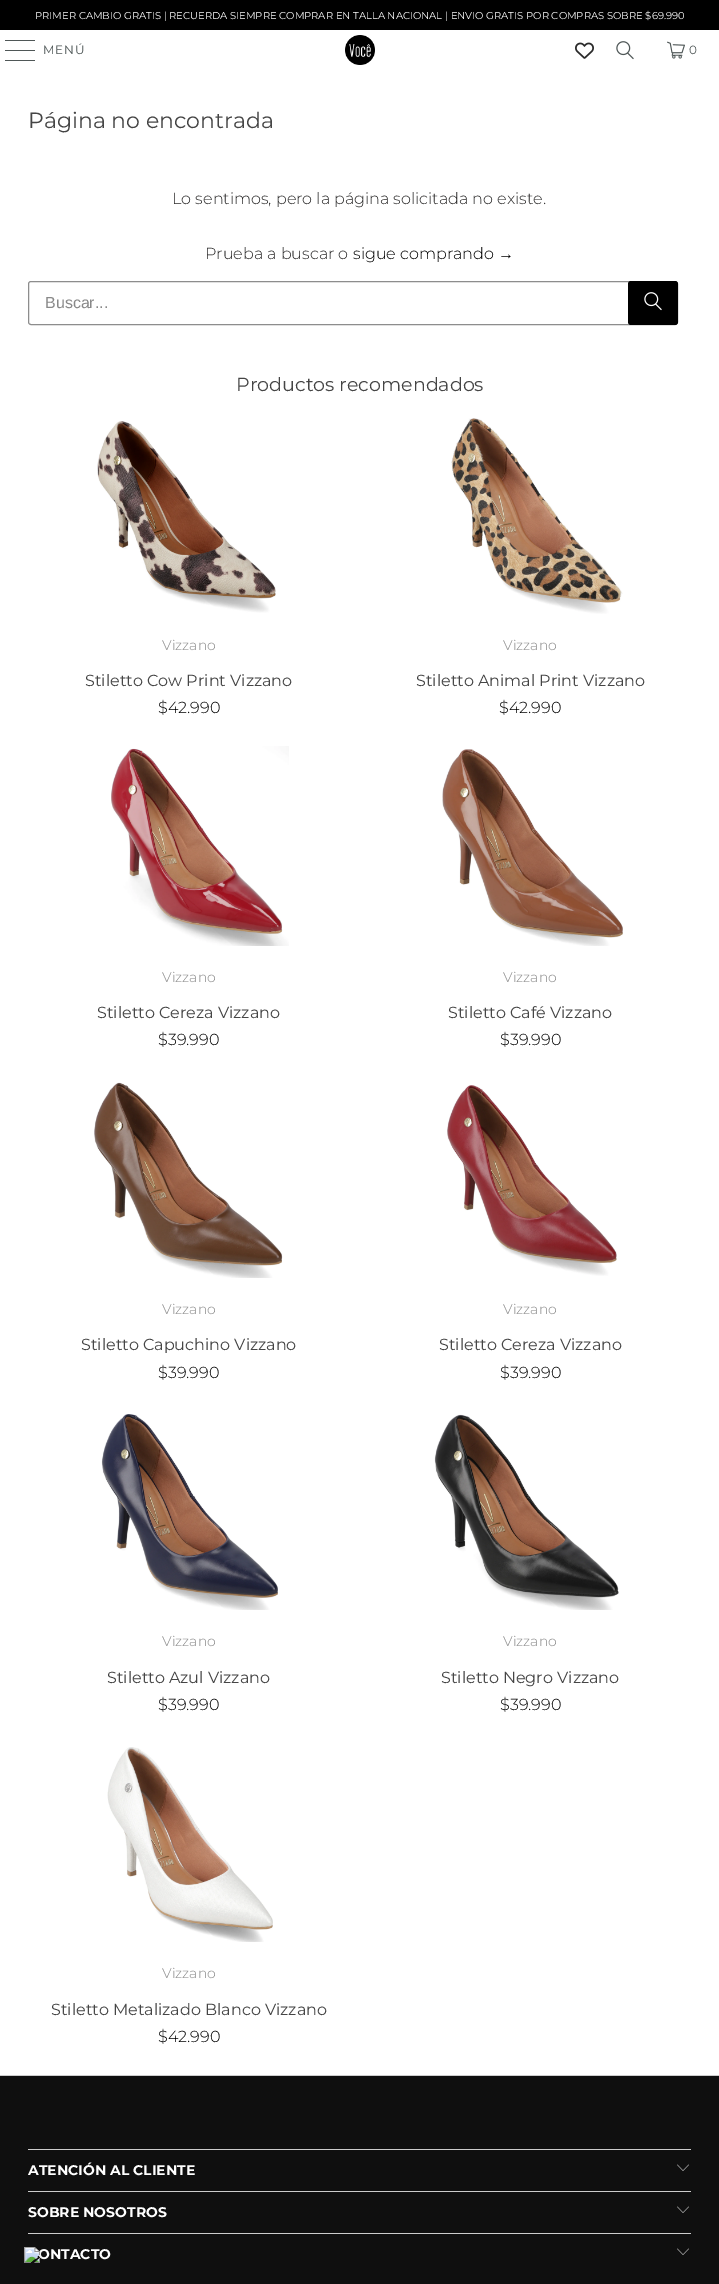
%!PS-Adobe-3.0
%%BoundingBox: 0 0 719 2284
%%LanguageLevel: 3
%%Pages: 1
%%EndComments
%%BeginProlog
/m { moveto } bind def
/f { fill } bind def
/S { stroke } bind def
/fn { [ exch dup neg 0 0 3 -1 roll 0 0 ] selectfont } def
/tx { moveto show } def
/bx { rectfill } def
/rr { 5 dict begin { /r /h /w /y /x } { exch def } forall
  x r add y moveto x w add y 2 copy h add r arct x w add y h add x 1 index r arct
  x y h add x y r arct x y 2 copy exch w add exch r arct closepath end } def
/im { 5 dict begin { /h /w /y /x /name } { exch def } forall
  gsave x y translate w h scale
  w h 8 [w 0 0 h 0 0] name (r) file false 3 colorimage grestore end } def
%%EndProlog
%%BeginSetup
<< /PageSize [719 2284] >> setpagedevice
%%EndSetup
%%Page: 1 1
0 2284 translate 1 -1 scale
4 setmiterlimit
1 setgray
0 0 719 2284 bx
0 setgray
0 0 719 30 bx
/Montserrat-Regular 10 fn
1 setgray
(PRIMER CAMBIO GRATIS | RECUERDA SIEMPRE COMPRAR EN TALLA NACIONAL | ENVIO GRATIS POR COMPRAS SOBRE $69.990) 35 19 tx
0.31 0.341 0.341 setrgbcolor
5 40 30 1 0.5 rr f
5 50 30 1 0.5 rr f
5 60 30 1 0.5 rr f
/Montserrat-Regular 12 fn
43 54 m 1 0 (MENÚ) ashow
(image0.raw) 345 35 30 30 im
(image1.raw) 575 42 19 17 im
(image2.raw) 616 41 18 19 im
(image3.raw) 667 41 18 18 im
689 54 m 1 0 (0) ashow
/Montserrat-Regular 22 fn
0.271 setgray
(Página no encontrada) 28 128 tx
/Montserrat-Light 16 fn
0.169 0.165 0.165 setrgbcolor
(Lo sentimos, pero la página solicitada no existe.) 172 204 tx
(Prueba a buscar o) 205 259 tx
0 setgray
(sigue comprando) 353 259 tx
/LiberationSans-Regular 16 fn
(→) 498 259 tx
0.553 setgray
28.5 281.5 649 43 2.5 rr S
0.533 setgray
(Buscar...) 45 308 tx
0 setgray
628 281 50 44 3 rr f
(image4.raw) 644 292 18 19 im
/Montserrat-Regular 19 fn
0.271 setgray
(Productos recomendados) 236 391 tx
(image5.raw) 97 421 179 192 im
/Montserrat-Light 14 fn
0.533 setgray
(Vizzano) 162 650 tx
/Montserrat-Regular 16 fn
0.271 setgray
(Stiletto Cow Print Vizzano) 85 686 tx
/Montserrat-Light 16 fn
0 setgray
($42.990) 158 713 tx
(image6.raw) 451 418 172 196 im
/Montserrat-Light 14 fn
0.533 setgray
(Vizzano) 503 650 tx
/Montserrat-Regular 16 fn
0.271 setgray
(Stiletto Animal Print Vizzano) 416 686 tx
/Montserrat-Light 16 fn
0 setgray
($42.990) 499 713 tx
(image7.raw) 111 746 178 200 im
/Montserrat-Light 14 fn
0.533 setgray
(Vizzano) 162 982 tx
/Montserrat-Regular 16 fn
0.271 setgray
(Stiletto Cereza Vizzano) 97 1018 tx
/Montserrat-Light 16 fn
0 setgray
($39.990) 158 1045 tx
(image8.raw) 442 749 181 197 im
/Montserrat-Light 14 fn
0.533 setgray
(Vizzano) 503 982 tx
/Montserrat-Regular 16 fn
0.271 setgray
(Stiletto Café Vizzano) 448 1018 tx
/Montserrat-Light 16 fn
0 setgray
($39.990) 500 1045 tx
(image9.raw) 94 1082 189 196 im
/Montserrat-Light 14 fn
0.533 setgray
(Vizzano) 162 1314 tx
/Montserrat-Regular 16 fn
0.271 setgray
(Stiletto Capuchino Vizzano) 81 1350 tx
/Montserrat-Light 16 fn
0 setgray
($39.990) 158 1378 tx
(image10.raw) 447 1085 170 191 im
/Montserrat-Light 14 fn
0.533 setgray
(Vizzano) 503 1314 tx
/Montserrat-Regular 16 fn
0.271 setgray
(Stiletto Cereza Vizzano) 439 1350 tx
/Montserrat-Light 16 fn
0 setgray
($39.990) 500 1378 tx
(image11.raw) 101 1414 177 196 im
/Montserrat-Light 14 fn
0.533 setgray
(Vizzano) 162 1646 tx
/Montserrat-Regular 16 fn
0.271 setgray
(Stiletto Azul Vizzano) 107 1683 tx
/Montserrat-Light 16 fn
0 setgray
($39.990) 158 1710 tx
(image12.raw) 434 1414 185 196 im
/Montserrat-Light 14 fn
0.533 setgray
(Vizzano) 503 1646 tx
/Montserrat-Regular 16 fn
0.271 setgray
(Stiletto Negro Vizzano) 441 1683 tx
/Montserrat-Light 16 fn
0 setgray
($39.990) 500 1710 tx
(image13.raw) 107 1747 166 195 im
/Montserrat-Light 14 fn
0.533 setgray
(Vizzano) 162 1978 tx
/Montserrat-Regular 16 fn
0.271 setgray
(Stiletto Metalizado Blanco Vizzano) 51 2015 tx
/Montserrat-Light 16 fn
0 setgray
($42.990) 158 2042 tx
0.059 setgray
0 2076 719 208 bx
0.8 setgray
0 2075 719 1 bx
28 2149 663 1 bx
/Montserrat-Bold 14 fn
1 setgray
(ATENCIÓN AL CLIENTE) 28 2175 tx
(image14.raw) 677 2164 12 7 im
0.8 setgray
28 2191 663 1 bx
1 setgray
(SOBRE NOSOTROS) 28 2217 tx
(image14.raw) 677 2206 12 7 im
0.8 setgray
28 2233 663 1 bx
1 setgray
(ONTACTO) 38 2259 tx
(image14.raw) 677 2248 12 7 im
(image15.raw) 24 2247 21 16 im
showpage
%%EOF
